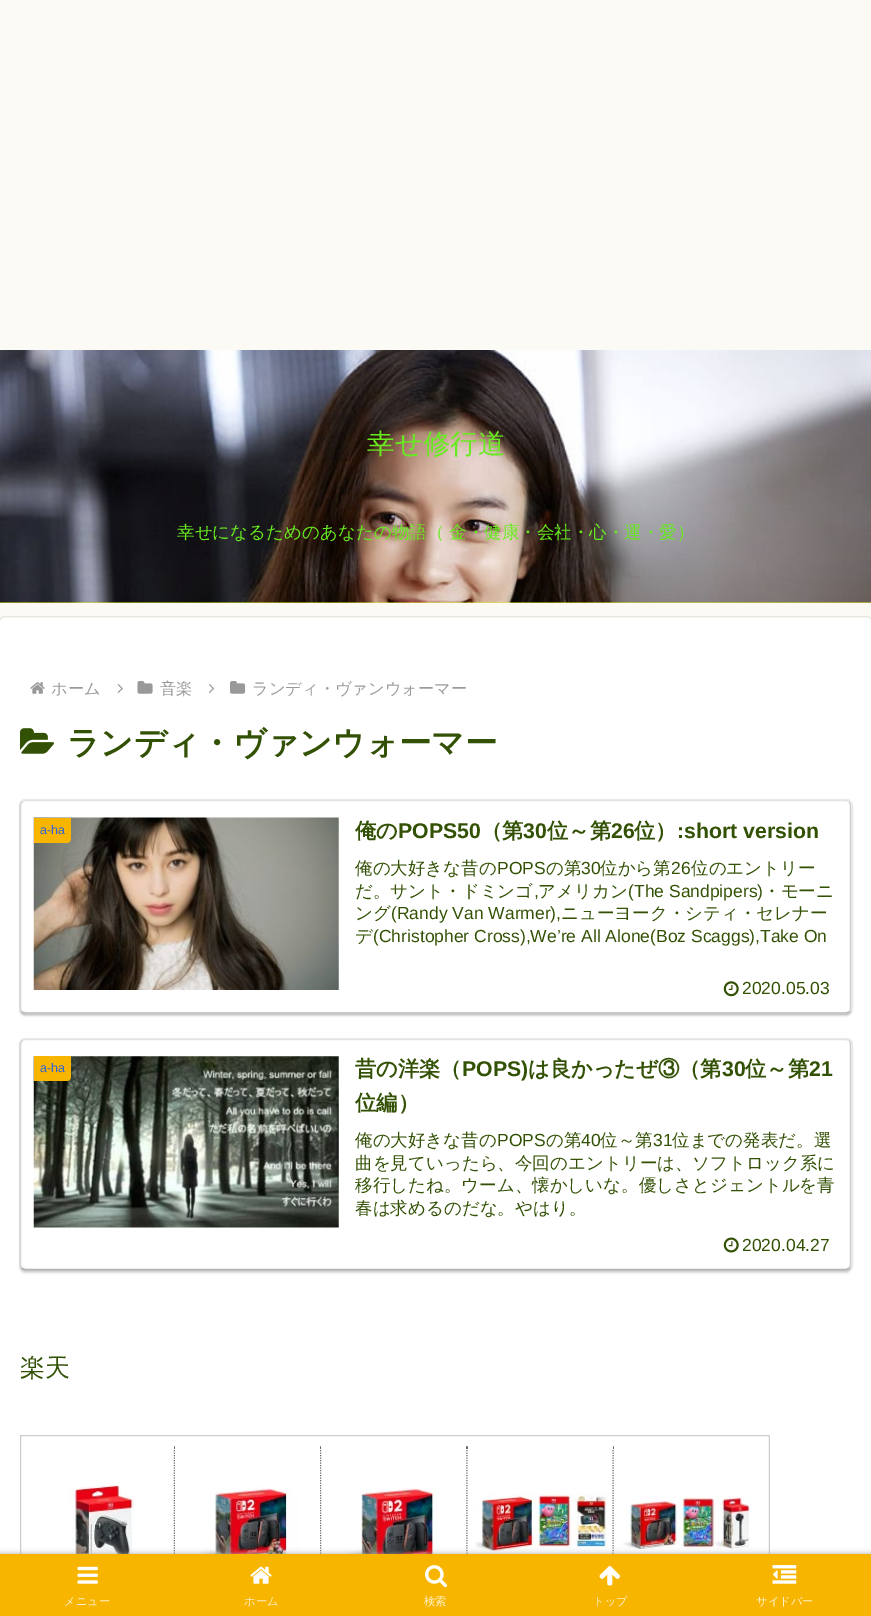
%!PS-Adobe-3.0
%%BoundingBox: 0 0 871 1616
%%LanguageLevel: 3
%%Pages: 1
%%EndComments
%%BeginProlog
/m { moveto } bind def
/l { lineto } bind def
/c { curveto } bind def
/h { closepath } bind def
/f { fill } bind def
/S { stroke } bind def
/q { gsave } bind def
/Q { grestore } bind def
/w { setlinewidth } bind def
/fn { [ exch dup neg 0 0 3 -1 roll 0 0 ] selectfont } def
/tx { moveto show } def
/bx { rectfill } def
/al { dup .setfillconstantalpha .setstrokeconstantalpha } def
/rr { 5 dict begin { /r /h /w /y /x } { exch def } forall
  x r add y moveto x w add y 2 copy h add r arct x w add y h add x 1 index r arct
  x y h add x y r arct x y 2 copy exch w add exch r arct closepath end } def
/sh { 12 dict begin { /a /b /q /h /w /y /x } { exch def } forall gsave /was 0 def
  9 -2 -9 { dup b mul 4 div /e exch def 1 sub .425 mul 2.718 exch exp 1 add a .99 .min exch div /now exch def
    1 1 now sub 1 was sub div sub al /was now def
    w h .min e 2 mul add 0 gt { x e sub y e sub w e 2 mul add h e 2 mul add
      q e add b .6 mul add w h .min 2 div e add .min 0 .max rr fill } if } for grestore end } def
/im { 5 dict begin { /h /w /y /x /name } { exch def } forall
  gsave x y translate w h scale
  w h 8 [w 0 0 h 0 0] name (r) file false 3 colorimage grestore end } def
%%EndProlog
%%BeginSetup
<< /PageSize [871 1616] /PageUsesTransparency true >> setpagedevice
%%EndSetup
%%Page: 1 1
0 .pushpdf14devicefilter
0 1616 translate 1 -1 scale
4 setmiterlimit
0.984 0.98 0.961 setrgbcolor
0 0 871 1616 bx
0.933 0.933 0.133 setrgbcolor
0 602 871 1 bx
(image0.raw) 0 350 871 253 im
/WenQuanYiZenHei-Medium 27.5 fn
0.404 0.918 0.125 setrgbcolor
(幸せ修行道) 367 453 tx
/WenQuanYiZenHei-Medium 17.5 fn
(幸せになるためのあなたの物語（ 金・健康・会社・心・運・愛）) 177 538 tx
0.906 0.902 0.882 setrgbcolor
-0.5 616.5 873 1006 5.5 rr S
1 setgray
0 618 871 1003 5 rr f
(image1.raw) 30 682 15 12 im
/WenQuanYiZenHei-Medium 16.25 fn
0.6 setgray
(ホーム) 51 694 tx
(image2.raw) 117 684 6 9 im
(image3.raw) 137 681 16 13 im
(音楽) 160 694 tx
(image4.raw) 209 684 6 9 im
(image5.raw) 230 681 16 13 im
(ランディ・ヴァンウォーマー) 252 694 tx
(image6.raw) 20 728 35 26 im
/WenQuanYiZenHei-Bold 32.5 fn
0.2 0.318 0.016 setrgbcolor
(ランディ・ヴァンウォーマー) 67 754 tx
0.922 setgray
19.5 799.5 833 215 5.5 rr S
q
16 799 m 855 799 l 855 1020 l 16 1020 l h 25 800 m 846 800 l 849 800 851 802 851 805 c 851 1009 l 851 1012 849 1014 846 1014 c 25 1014 l 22 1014 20 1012 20 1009 c 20 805 l 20 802 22 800 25 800 c h eoclip newpath
0 setgray
20 803 831 213 5 1 0.16 sh
Q
0.89 setgray
1.2 w
22 802 m 25 800.5 l 846 800.5 l 849.5 802 l S
0.808 setgray
849.5 802 m 850.5 805 l 850.5 1009 l 849.5 1012 l S
0.706 setgray
849.5 1012 m 846 1013 l 25 1013 l 22 1012 l S
0.839 setgray
22 1012 m 20.5 1009 l 20.5 804.5 l 22 802 l S
(image7.raw) 33 817 306 173 im
0.973 0.71 0 setrgbcolor
34 818 m 71 818 l 71 839 l 71 841 69 843 67 843 c 34 843 l h f
/LiberationSans-Regular 12.5 fn
0.192 0.384 0.839 setrgbcolor
(a-ha) 40 834 tx
/WenQuanYiZenHei-Bold 21.25 fn
0.2 0.318 0.016 setrgbcolor
(俺の) 355 838 tx
/LiberationSans-Bold 21.25 fn
(POPS50) 398 838 tx
/WenQuanYiZenHei-Bold 21.25 fn
(（第) 481 838 tx
/LiberationSans-Bold 21.25 fn
(30) 523 838 tx
/WenQuanYiZenHei-Bold 21.25 fn
(位～第) 547 838 tx
/LiberationSans-Bold 21.25 fn
(26) 611 838 tx
/WenQuanYiZenHei-Bold 21.25 fn
(位）) 634 838 tx
/LiberationSans-Bold 21.25 fn
(:short version) 677 838 tx
/WenQuanYiZenHei-Medium 17.5 fn
(俺の大好きな昔の) 355 874 tx
/LiberationSans-Regular 17.5 fn
(POPS) 497 874 tx
/WenQuanYiZenHei-Medium 17.5 fn
(の第) 546 874 tx
/LiberationSans-Regular 17.5 fn
(30) 581 874 tx
/WenQuanYiZenHei-Medium 17.5 fn
(位から第) 600 874 tx
/LiberationSans-Regular 17.5 fn
(26) 671 874 tx
/WenQuanYiZenHei-Medium 17.5 fn
(位のエントリー) 691 874 tx
(だ。サント・ドミンゴ) 355 897 tx
/LiberationSans-Regular 17.5 fn
(,) 534 897 tx
/WenQuanYiZenHei-Medium 17.5 fn
(アメリカン) 538 897 tx
/LiberationSans-Regular 17.5 fn
(\(The Sandpipers\)) 628 897 tx
/WenQuanYiZenHei-Medium 17.5 fn
(・モーニ) 763 897 tx
(ング) 355 919 tx
/LiberationSans-Regular 17.5 fn
(\(Randy Van Warmer\),) 391 919 tx
/WenQuanYiZenHei-Medium 17.5 fn
(ニューヨーク・シティ・セレナー) 561 919 tx
(デ) 355 942 tx
/LiberationSans-Regular 17.5 fn
(\(Christopher Cross\),We’re All Alone\(Boz Scaggs\),Take On) 373 942 tx
(image8.raw) 723 981 16 16 im
(2020.05.03) 742 994 tx
0.922 setgray
1 w
19.5 1038.5 833 232 5.5 rr S
q
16 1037 m 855 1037 l 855 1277 l 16 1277 l h 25 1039 m 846 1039 l 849 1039 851 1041 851 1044 c 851 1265 l 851 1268 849 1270 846 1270 c 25 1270 l 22 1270 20 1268 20 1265 c 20 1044 l 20 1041 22 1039 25 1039 c h eoclip newpath
0 setgray
20 1041 831 232 5 1 0.16 sh
Q
0.89 setgray
1.2 w
22 1040.5 m 25 1039.5 l 846 1039.5 l 849.5 1040.5 l S
0.808 setgray
849.5 1040.5 m 850.5 1043.5 l 850.5 1228 l 850.5 1265 l 849.5 1268 l S
0.706 setgray
849.5 1268 m 846 1269.5 l 25 1269.5 l 22 1268 l S
0.839 setgray
22 1268 m 20.5 1265.5 l 20.5 1080.5 l 20.5 1044 l 22 1040.5 l S
(image9.raw) 33 1056 306 172 im
0.973 0.71 0 setrgbcolor
34 1056 m 71 1056 l 71 1077 l 71 1079 69 1081 67 1081 c 34 1081 l h f
/LiberationSans-Regular 12.5 fn
0.192 0.384 0.839 setrgbcolor
(a-ha) 40 1072 tx
/WenQuanYiZenHei-Bold 21.25 fn
0.2 0.318 0.016 setrgbcolor
(昔の洋楽（) 355 1076 tx
/LiberationSans-Bold 21.25 fn
(POPS\)) 462 1076 tx
/WenQuanYiZenHei-Bold 21.25 fn
(は良かったぜ③（第) 528 1076 tx
/LiberationSans-Bold 21.25 fn
(30) 722 1076 tx
/WenQuanYiZenHei-Bold 21.25 fn
(位～第) 745 1076 tx
/LiberationSans-Bold 21.25 fn
(21) 809 1076 tx
/WenQuanYiZenHei-Bold 21.25 fn
(位編）) 355 1110 tx
/WenQuanYiZenHei-Medium 17.5 fn
(俺の大好きな昔の) 355 1146 tx
/LiberationSans-Regular 17.5 fn
(POPS) 497 1146 tx
/WenQuanYiZenHei-Medium 17.5 fn
(の第) 546 1146 tx
/LiberationSans-Regular 17.5 fn
(40) 581 1146 tx
/WenQuanYiZenHei-Medium 17.5 fn
(位～第) 600 1146 tx
/LiberationSans-Regular 17.5 fn
(31) 653 1146 tx
/WenQuanYiZenHei-Medium 17.5 fn
(位までの発表だ。選) 672 1146 tx
(曲を見ていったら、今回のエントリーは、ソフトロック系に) 355 1169 tx
(移行したね。ウーム、懐かしいな。優しさとジェントルを青) 355 1191 tx
(春は求めるのだな。やはり。) 355 1214 tx
(image10.raw) 723 1237 16 16 im
/LiberationSans-Regular 17.5 fn
(2020.04.27) 742 1251 tx
/WenQuanYiZenHei-Medium 25 fn
(楽天) 20 1376 tx
(image11.raw) 20 1435 750 119 im
0.663 setgray
0 1554 871 62 0 3 1 sh
0.973 0.71 0 setrgbcolor
0 1554 871 62 bx
(image12.raw) 77 1566 21 18 im
/WenQuanYiZenHei-Medium 11.25 fn
0.996 0.941 0.8 setrgbcolor
(メニュー) 64 1605 tx
(image13.raw) 250 1566 22 18 im
(ホーム) 244 1605 tx
(image14.raw) 425 1565 22 23 im
(検索) 424 1605 tx
(image15.raw) 599 1566 22 20 im
(トップ) 593 1605 tx
(image16.raw) 772 1565 25 19 im
(サイドバー) 756 1605 tx
.poppdf14devicefilter showpage
%%EOF
